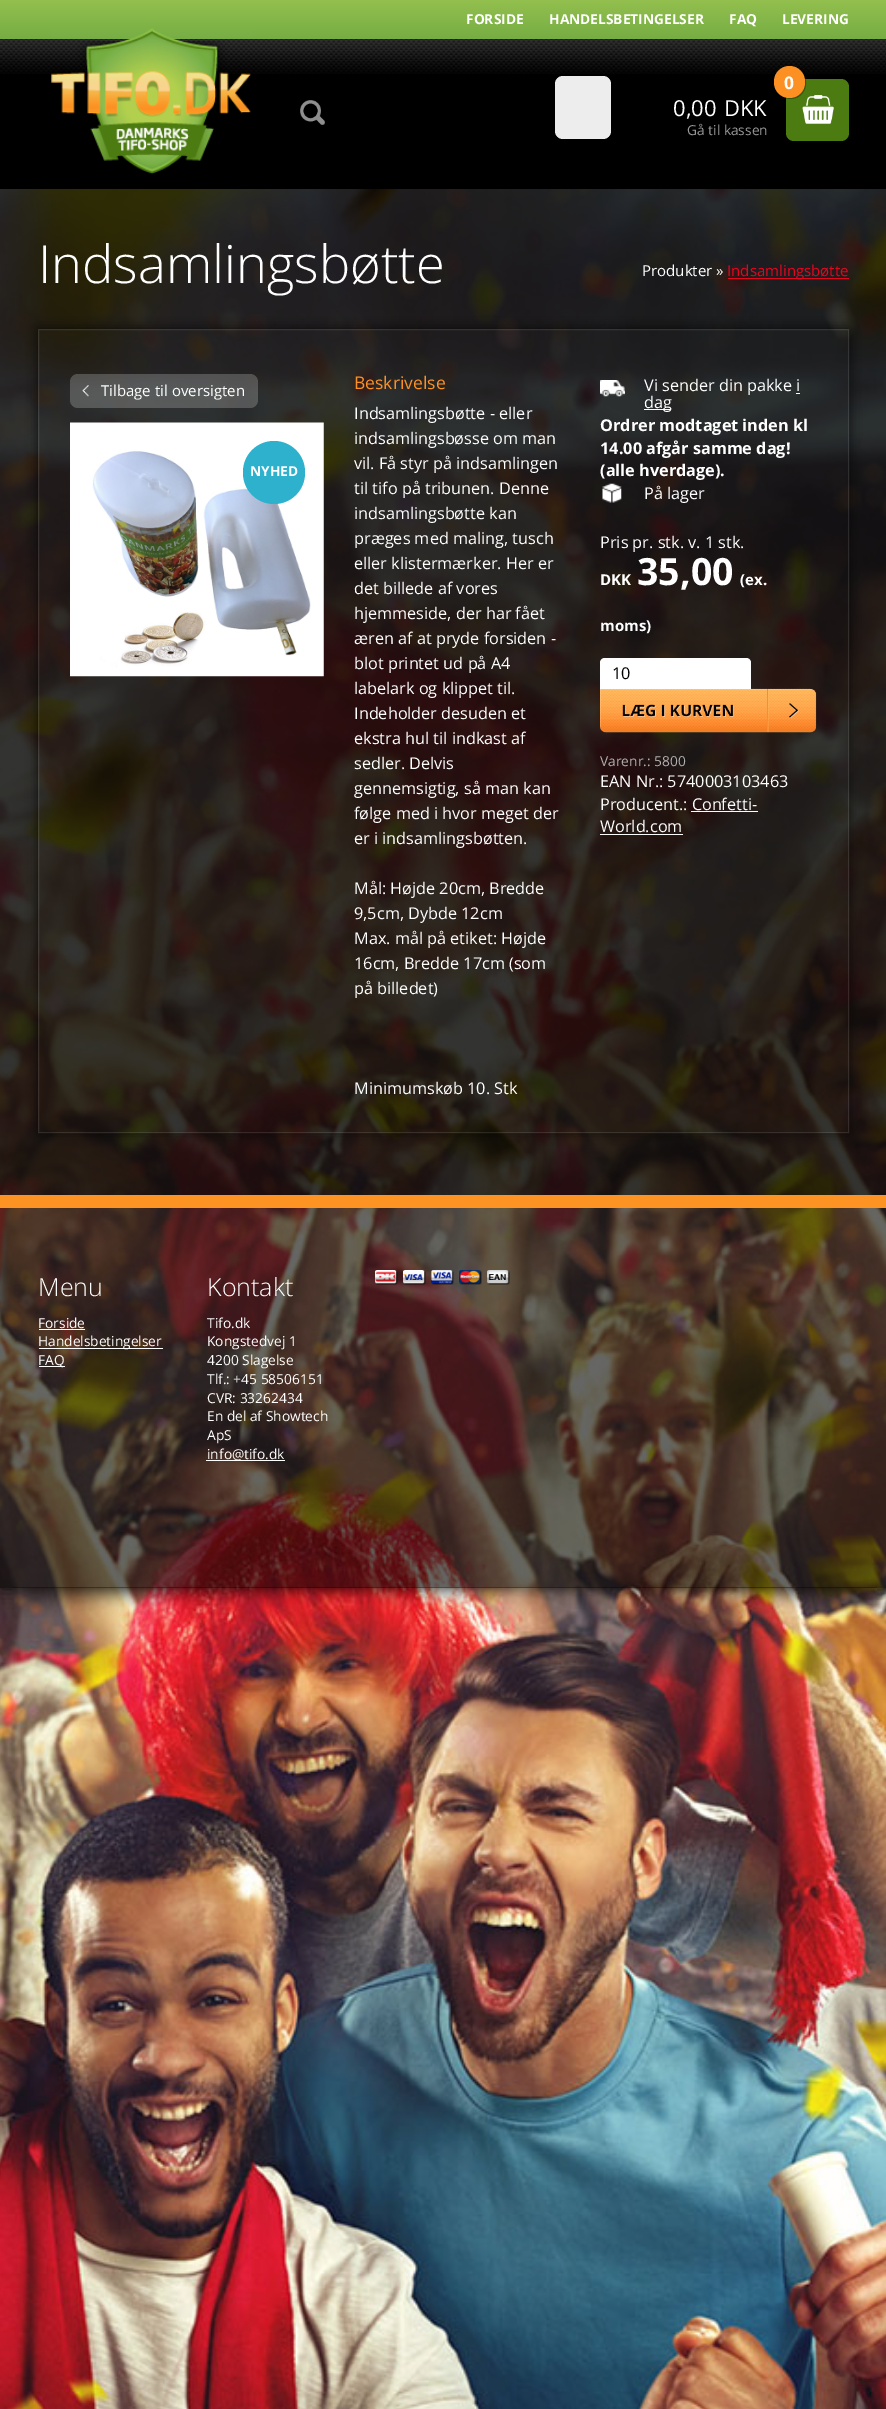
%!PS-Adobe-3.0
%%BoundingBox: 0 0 886 2409
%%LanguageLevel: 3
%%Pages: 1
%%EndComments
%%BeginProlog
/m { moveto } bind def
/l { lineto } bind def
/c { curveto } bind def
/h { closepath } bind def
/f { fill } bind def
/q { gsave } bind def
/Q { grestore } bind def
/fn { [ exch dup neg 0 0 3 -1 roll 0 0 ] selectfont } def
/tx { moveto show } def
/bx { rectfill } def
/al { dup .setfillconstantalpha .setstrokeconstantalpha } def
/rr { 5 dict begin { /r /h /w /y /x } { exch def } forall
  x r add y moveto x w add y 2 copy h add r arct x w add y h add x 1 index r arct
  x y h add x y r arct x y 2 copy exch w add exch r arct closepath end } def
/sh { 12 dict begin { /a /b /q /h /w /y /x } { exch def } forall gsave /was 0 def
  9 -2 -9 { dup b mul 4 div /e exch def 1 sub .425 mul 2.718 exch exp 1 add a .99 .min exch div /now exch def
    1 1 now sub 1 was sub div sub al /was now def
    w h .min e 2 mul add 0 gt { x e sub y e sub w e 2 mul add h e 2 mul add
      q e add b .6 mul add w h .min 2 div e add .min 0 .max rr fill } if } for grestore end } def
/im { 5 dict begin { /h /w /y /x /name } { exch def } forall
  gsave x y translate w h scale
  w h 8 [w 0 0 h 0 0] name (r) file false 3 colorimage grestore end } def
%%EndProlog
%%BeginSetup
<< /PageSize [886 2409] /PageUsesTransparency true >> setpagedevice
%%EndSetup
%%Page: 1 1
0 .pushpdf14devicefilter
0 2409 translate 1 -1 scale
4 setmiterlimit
1 setgray
0 0 886 2409 bx
(image0.raw) 0 189 886 2220 im
q
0 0 m 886 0 l 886 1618 l 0 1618 l h 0 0 m 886 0 l 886 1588 l 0 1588 l h eoclip newpath
0 setgray
0 0 886 1588 0 9.5 0.9 sh
Q
0 setgray
0 73 886 116 bx
(image1.raw) 0 39 886 35 im
q 0 0 m 886 0 l 886 39 l 0 39 l h clip newpath
<< /ShadingType 2 /ColorSpace /DeviceRGB /Coords [443 0 443 39] /Extend [true true] /Function << /FunctionType 2 /Domain [0 1] /C0 [0.576 0.753 0.306] /C1 [0.463 0.678 0.267] /N 1 >> >> shfill Q
/OpenSans-Bold 13.75 fn
1 setgray
(FORSIDE) 466 24 tx
(HANDELSBETINGELSER) 549 24 tx
(FAQ) 729 24 tx
(LEVERING) 782 24 tx
(image2.raw) 51 28 201 146 im
(image3.raw) 300 100 25 25 im
0.929 setgray
555 76 56 63 8 rr f
0.298 0.482 0.071 setrgbcolor
786 79 63 62 8 rr f
(image4.raw) 802 95 32 29 im
0.3 al
0 setgray
777.5 92.5 m 782.5 99 792 101 799 96.5 c 806.5 91.5 808 81.5 803.5 74.5 c 811.5 90.5 790 106 777.5 92.5 c h f
1 al
0.988 0.565 0.137 setrgbcolor
774 66 31 32 15.5 rr f
/OpenSans-Bold 17.5 fn
1 setgray
(0) 784 89 tx
/OpenSans-Regular 22 fn
(0,00) 673 116 tx
(DKK) 724 116 tx
/OpenSans-Regular 13.75 fn
0.6 setgray
(Gå til kassen) 687 135 tx
(image5.raw) 12 1587 865 31 im
0.8 al
0 setgray
0 189 886 1006 bx
1 al
0.988 0.576 0.137 setrgbcolor
0 1195 886 13 bx
/OpenSans-Light 52.5 fn
1 setgray
(Indsamlingsbøtte) 38 283 tx
/OpenSans-Regular 15 fn
(Produkter ») 642 276 tx
0.894 0.02 0.118 setrgbcolor
728 278 121 1 bx
(Indsamlingsbøtte) 727 276 tx
q
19 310 m 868 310 l 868 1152 l 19 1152 l h 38 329 m 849 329 l 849 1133 l 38 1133 l h eoclip newpath
0 setgray
38 329 811 804 0 6 0.7 sh
Q
0.1 al
1 setgray
38.5 329.5 810 803 rectstroke
0.3 al
0.737 setgray
70 374 188 34 8 rr f
1 al
(image6.raw) 82 385 7 12 im
1 setgray
(Tilbage til oversigten) 101 396 tx
(image7.raw) 70 422 254 255 im
0.176 0.694 0.804 setrgbcolor
243 441 62 63 31 rr f
/OpenSans-Bold 13.75 fn
1 setgray
(NYHED) 250 476 tx
/OpenSans-Regular 17.5 fn
0.988 0.565 0.137 setrgbcolor
(Beskrivelse) 354 389 tx
/OpenSans-Regular 16.25 fn
1 setgray
(Indsamlingsbøtte - eller) 354 419 tx
(indsamlingsbøsse om man) 354 444 tx
(vil. Få styr på indsamlingen) 354 469 tx
(til tifo på tribunen. Denne) 354 494 tx
(indsamlingsbøtte kan) 354 519 tx
(præges med maling, tusch) 354 544 tx
(eller klistermærker. Her er) 354 569 tx
(det billede af vores) 354 594 tx
(hjemmeside, der har fået) 354 619 tx
(æren af at pryde forsiden -) 354 644 tx
(blot printet ud på A4) 354 669 tx
(labelark og klippet til.) 354 694 tx
(Indeholder desuden et) 354 719 tx
(ekstra hul til indkast af) 354 744 tx
(sedler. Delvis) 354 769 tx
(gennemsigtig, så man kan) 354 794 tx
(følge med i hvor meget der) 354 819 tx
(er i indsamlingsbøtten.) 354 844 tx
(Mål: Højde 20cm, Bredde) 354 894 tx
(9,5cm, Dybde 12cm) 354 919 tx
(Max. mål på etiket: Højde) 354 944 tx
(16cm, Bredde 17cm \(som) 354 969 tx
(på billedet\)) 354 994 tx
(Minimumskøb 10. Stk) 354 1094 tx
(image8.raw) 600 380 25 17 im
(Vi sender din pakke i) 644 391 tx
0.984 setgray
644 409 27 1 bx
1 setgray
(dag) 644 408 tx
0.984 setgray
796 393 4 1 bx
/OpenSans-Bold 16.25 fn
1 setgray
(Ordrer modtaget inden kl) 600 431 tx
(14.00 afgår samme dag!) 600 454 tx
(\(alle hverdage\).) 600 476 tx
(image9.raw) 602 483 20 20 im
/OpenSans-Regular 16.25 fn
(På lager) 644 499 tx
(Pris pr. stk. v. 1 stk.) 600 548 tx
/OpenSans-Bold 15 fn
(DKK) 600 585 tx
/OpenSans-Bold 37.5 fn
(35,00) 637 585 tx
/OpenSans-Bold 15 fn
(\(ex.) 740 585 tx
(moms\)) 600 631 tx
(image10.raw) 600 688 217 45 im
605 658 m 746 658 l 749 658 751 660 751 663 c 751 689 l 600 689 l 600 663 l 600 660 602 658 605 658 c h f
/OpenSans-Regular 16.25 fn
0 setgray
(10) 612 679 tx
/OpenSans-Regular 13.75 fn
0.694 setgray
(Varenr.: 5800) 600 766 tx
/OpenSans-Regular 16.25 fn
1 setgray
(EAN Nr.: 5740003103463) 600 787 tx
(Producent.: Confetti-) 600 810 tx
(World.com) 600 832 tx
0.984 setgray
691 811 67 1 bx
600 834 83 1 bx
0.6 al
0 setgray
0 1208 886 380 bx
/OpenSans-Light 25 fn
1 al
1 setgray
(Menu) 38 1296 tx
/OpenSans-Regular 13.75 fn
(Forside) 38 1328 tx
39 1329 46 1 bx
39 1348 124 1 bx
(Handelsbetingelser) 38 1346 tx
39 1366 26 1 bx
(FAQ) 38 1365 tx
/OpenSans-Light 25 fn
(Kontakt) 207 1296 tx
/OpenSans-Regular 13.75 fn
(Tifo.dk) 207 1328 tx
(Kongstedvej 1) 207 1346 tx
(4200 Slagelse) 207 1365 tx
(Tlf.: +45 58506151) 207 1384 tx
(CVR: 33262434) 207 1403 tx
(En del af Showtech) 207 1421 tx
(ApS) 207 1440 tx
206 1460 79 1 bx
(info@tifo.dk) 207 1459 tx
(image11.raw) 375 1270 135 15 im
.poppdf14devicefilter showpage
%%EOF
